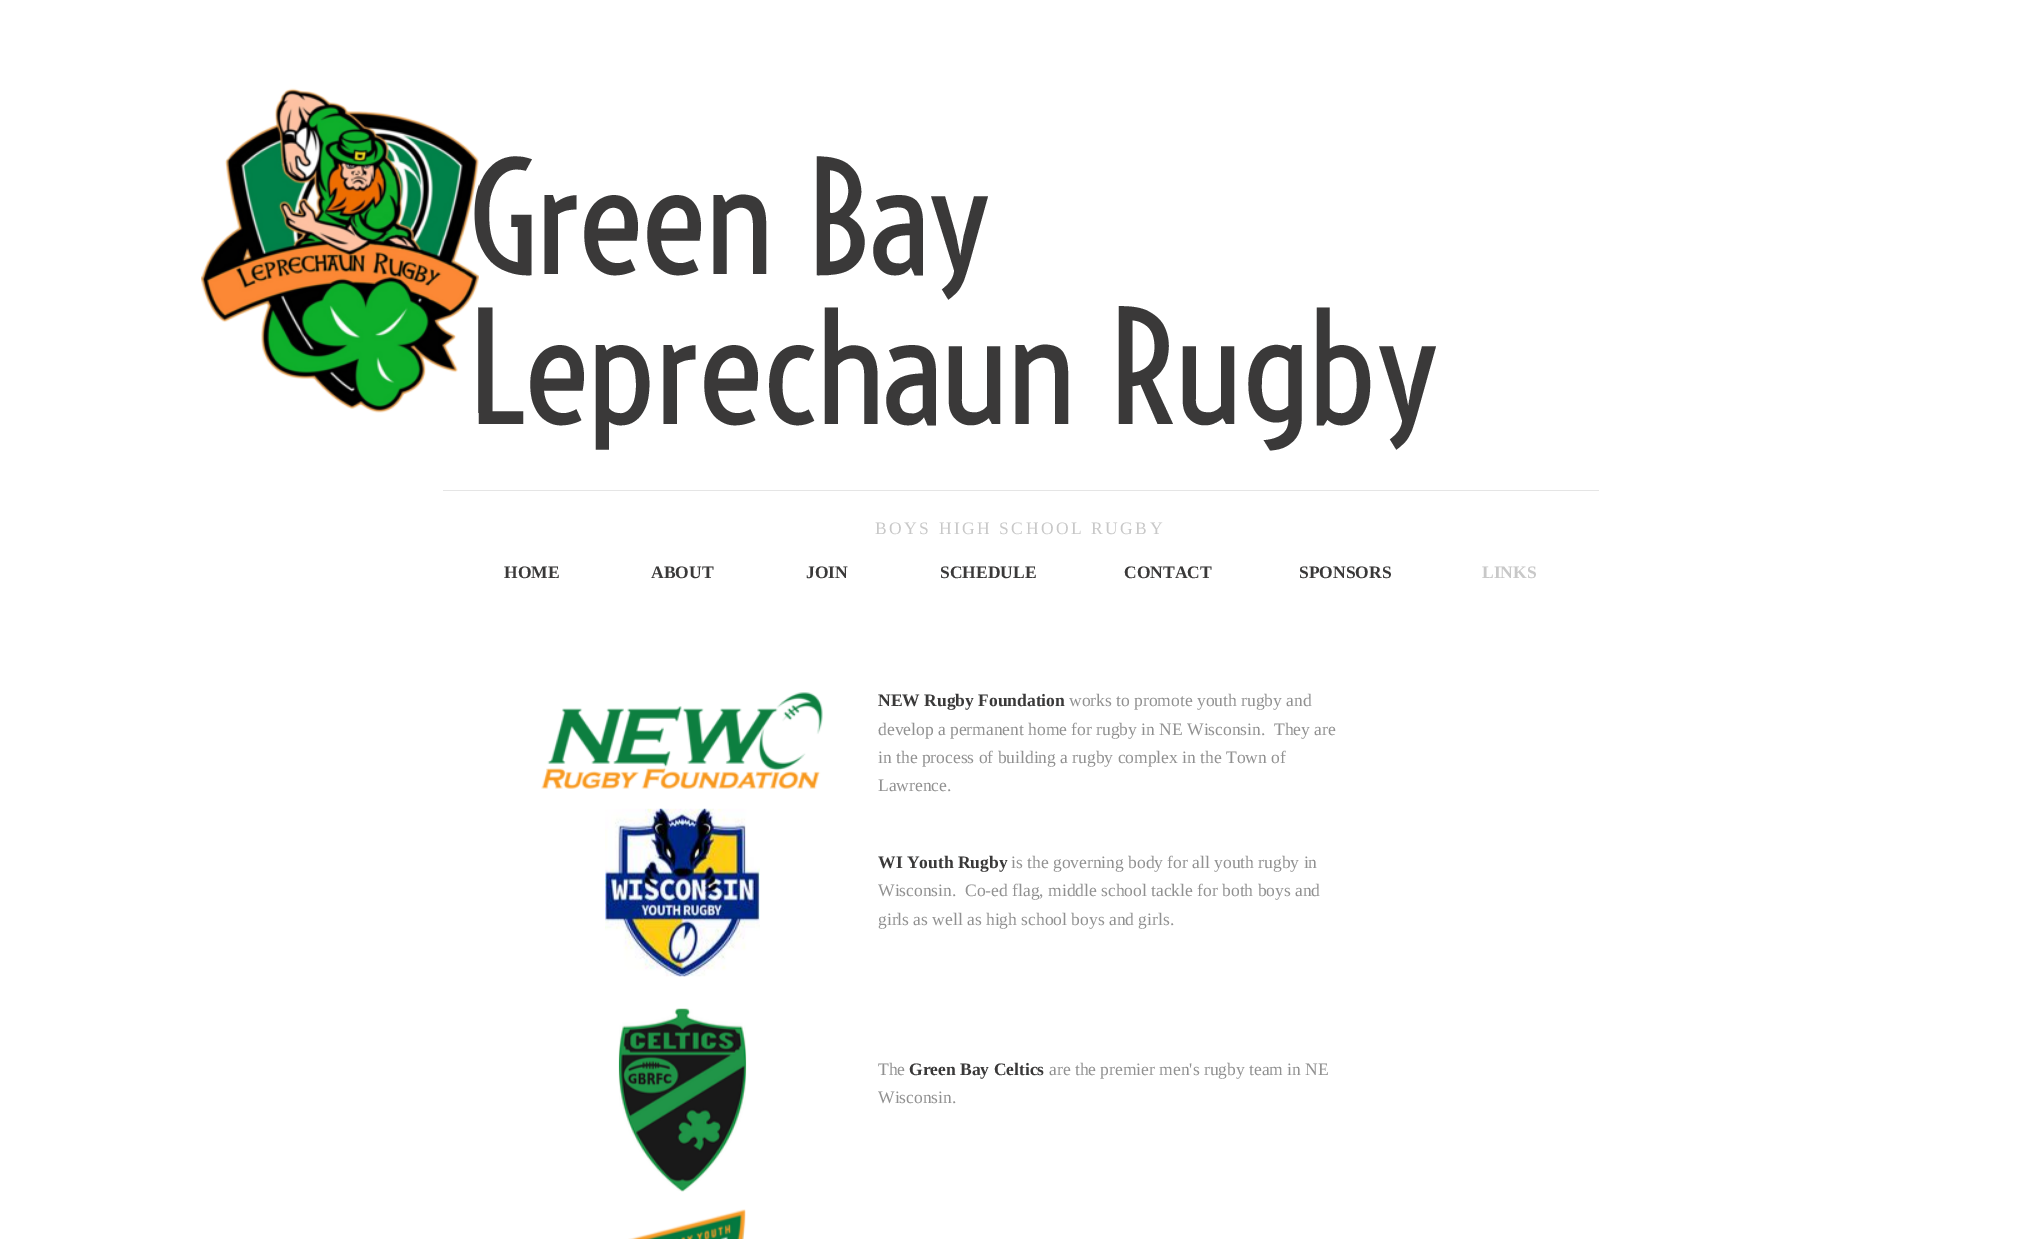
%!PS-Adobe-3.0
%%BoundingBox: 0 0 2039 1239
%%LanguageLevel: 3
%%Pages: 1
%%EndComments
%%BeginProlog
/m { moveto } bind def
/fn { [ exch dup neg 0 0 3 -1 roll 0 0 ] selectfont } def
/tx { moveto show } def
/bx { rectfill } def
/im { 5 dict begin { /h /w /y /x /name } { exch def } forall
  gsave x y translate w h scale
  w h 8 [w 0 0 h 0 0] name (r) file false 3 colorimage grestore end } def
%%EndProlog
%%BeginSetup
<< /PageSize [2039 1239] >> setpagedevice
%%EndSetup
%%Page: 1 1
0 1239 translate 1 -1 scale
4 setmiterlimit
1 setgray
0 0 2039 1239 bx
/Voltaire-Regular 150 fn
0.227 0.224 0.224 setrgbcolor
468 274 m -1.25 0 (Green Bay) ashow
468 424 m -1.25 0 (Leprechaun Rugby) ashow
(image0.raw) 201 88 278 325 im
0.898 setgray
443 490 1156 1 bx
/LiberationSerif-Regular 17.5 fn
0.784 setgray
875 534 m 2.5 0 (BOYS HIGH SCHOOL RUGBY) ashow
/LiberationSerif-Bold 17.5 fn
0.227 0.224 0.224 setrgbcolor
(HOME) 504 578 tx
(ABOUT) 651 578 tx
(JOIN) 806 578 tx
(SCHEDULE) 940 578 tx
(CONTACT) 1124 578 tx
(SPONSORS) 1299 578 tx
0.784 setgray
(LINKS) 1482 578 tx
(image1.raw) 541 692 282 97 im
0.227 0.224 0.224 setrgbcolor
(NEW Rugby Foundation) 878 706 tx
/LiberationSerif-Regular 17.5 fn
0.569 setgray
(works to promote youth rugby and) 1069 706 tx
(develop a permanent home for rugby in NE Wisconsin.  They are) 878 735 tx
(in the process of building a rugby complex in the Town of) 878 763 tx
(Lawrence.) 878 791 tx
(image2.raw) 605 808 155 169 im
/LiberationSerif-Bold 17.5 fn
0.227 0.224 0.224 setrgbcolor
(WI Youth Rugby) 878 868 tx
/LiberationSerif-Regular 17.5 fn
0.569 setgray
(is the governing body for all youth rugby in) 1011 868 tx
(Wisconsin.  Co-ed flag, middle school tackle for both boys and) 878 896 tx
(girls as well as high school boys and girls.) 878 925 tx
(image3.raw) 618 1008 129 184 im
(The) 878 1075 tx
/LiberationSerif-Bold 17.5 fn
0.227 0.224 0.224 setrgbcolor
(Green Bay Celtics) 909 1075 tx
/LiberationSerif-Regular 17.5 fn
0.569 setgray
(are the premier men's rugby team in NE) 1049 1075 tx
(Wisconsin.) 878 1103 tx
(image4.raw) 628 1209 118 30 im
showpage
%%EOF
